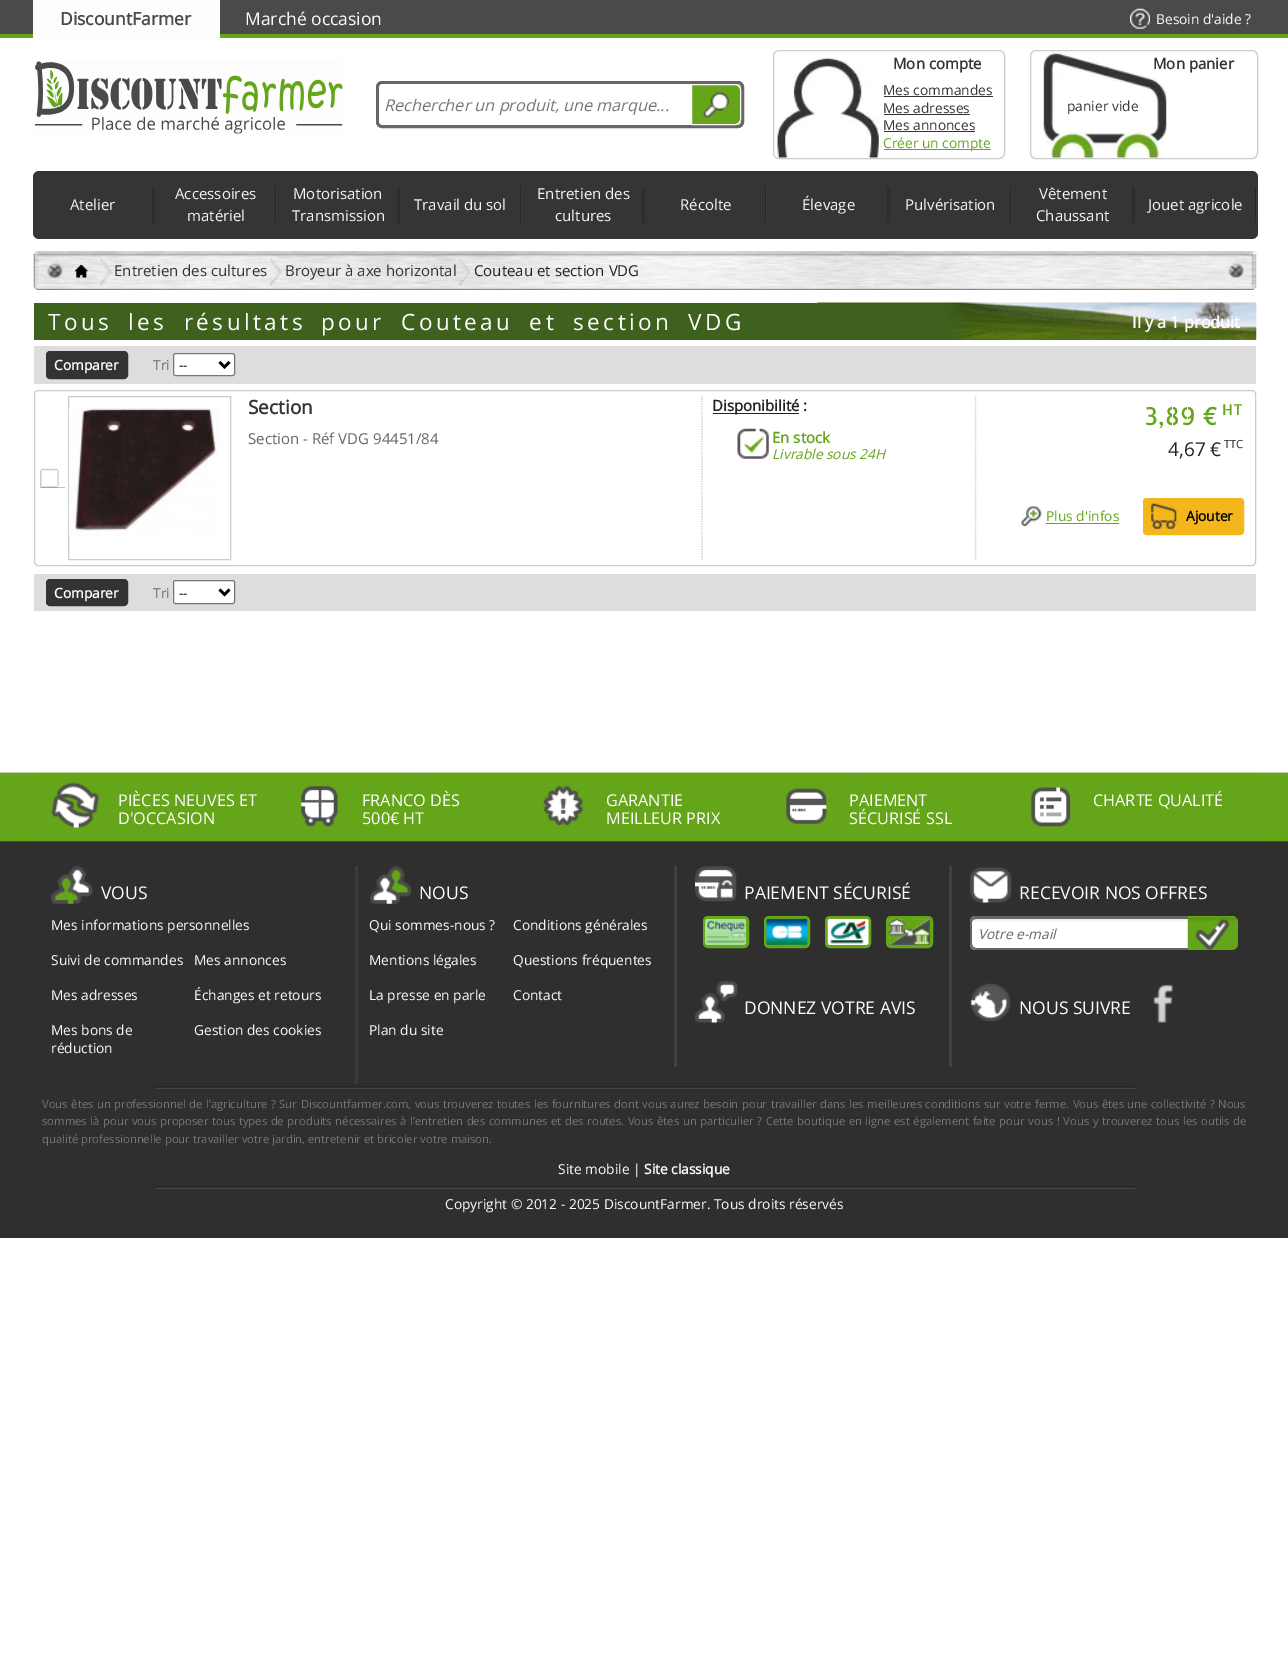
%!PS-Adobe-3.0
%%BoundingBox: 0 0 1288 1667
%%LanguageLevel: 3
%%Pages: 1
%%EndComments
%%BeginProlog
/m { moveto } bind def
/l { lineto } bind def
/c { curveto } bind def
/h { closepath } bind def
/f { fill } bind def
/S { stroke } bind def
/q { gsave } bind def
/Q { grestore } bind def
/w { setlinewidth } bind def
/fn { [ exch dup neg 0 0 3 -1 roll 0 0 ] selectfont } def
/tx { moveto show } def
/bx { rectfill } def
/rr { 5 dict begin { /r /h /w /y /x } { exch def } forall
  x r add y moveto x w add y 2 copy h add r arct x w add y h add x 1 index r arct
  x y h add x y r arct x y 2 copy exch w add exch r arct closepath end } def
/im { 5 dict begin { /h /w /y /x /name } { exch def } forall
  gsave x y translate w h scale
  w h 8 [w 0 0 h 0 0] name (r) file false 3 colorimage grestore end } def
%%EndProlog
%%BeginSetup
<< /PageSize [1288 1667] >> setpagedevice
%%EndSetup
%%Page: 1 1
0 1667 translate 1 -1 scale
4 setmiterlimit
1 setgray
0 0 1288 1667 bx
0.286 0.294 0.29 setrgbcolor
0 0 1288 34 bx
0.396 0.647 0.098 setrgbcolor
0 34 1288 4 bx
0.992 setgray
33 0 187 38 bx
/OpenSans-Bold 17.5 fn
0.286 0.294 0.29 setrgbcolor
(DiscountFarmer) 60 25 tx
/OpenSans-Regular 17.5 fn
0.992 setgray
(Marché occasion) 245 25 tx
(image0.raw) 1130 8 20 21 im
/OpenSans-Regular 13.75 fn
(Besoin d'aide ?) 1156 24 tx
(image1.raw) 34 61 309 73 im
0.4 setgray
3 w
377.5 82.5 365 44 4.5 rr S
1 setgray
383 84 m 691 84 l 691 125 l 383 125 l 381 125 379 123 379 121 c 379 88 l 379 86 381 84 383 84 c h f
/OpenSans-Italic 16.25 fn
0.467 setgray
(Rechercher un produit, une marque...) 384 111 tx
0.396 0.647 0.098 setrgbcolor
691 84 m 735 84 l 738.5 84 741 86.5 741 90 c 741 119 l 741 122.5 738.5 125 735 125 c 691 125 l h f
(image2.raw) 703 92 26 26 im
1 setgray
1 w
691.5 84.5 m 735 84.5 l 738 84.5 740.5 87 740.5 90 c 740.5 119 l 740.5 122 738 124.5 735 124.5 c 691.5 124.5 l h S
(image3.raw) 777 58 102 100 im
0.8 setgray
773.5 50.5 231 108 5.5 rr S
/OpenSans-Bold 15 fn
0.2 setgray
(Mon compte) 893 69 tx
/OpenSans-Regular 13.75 fn
(Mes commandes) 883 95 tx
884 96 109 1 bx
(Mes adresses) 883 113 tx
884 114 86 1 bx
(Mes annonces) 883 130 tx
884 131 91 1 bx
0.396 0.647 0.098 setrgbcolor
884 149 107 1 bx
(Créer un compte) 883 148 tx
(image4.raw) 1043 52 124 106 im
0.8 setgray
1030.5 50.5 227 108 5.5 rr S
/OpenSans-Bold 15 fn
0.2 setgray
(Mon panier) 1153 69 tx
/OpenSans-Regular 13.75 fn
(panier vide) 1067 111 tx
0.208 setgray
33 171 1225 68 6 rr f
0.176 setgray
152 187 3 36 bx
/OpenSans-Regular 15 fn
0.961 setgray
(Atelier) 70 210 tx
(image5.raw) 275 187 2 36 im
(Accessoires) 175 199 tx
(matériel) 187 221 tx
0.176 setgray
397 187 3 36 bx
0.961 setgray
(Motorisation) 293 199 tx
(Transmission) 292 221 tx
(image5.raw) 520 187 2 36 im
(Travail du sol) 414 210 tx
0.176 setgray
642 187 3 36 bx
0.961 setgray
(Entretien des) 537 199 tx
(cultures) 555 221 tx
(image5.raw) 765 187 2 36 im
(Récolte) 680 210 tx
0.176 setgray
887 187 3 36 bx
0.961 setgray
(Élevage) 802 210 tx
(image5.raw) 1010 187 2 36 im
(Pulvérisation) 905 210 tx
0.176 setgray
1132 187 3 36 bx
0.961 setgray
(Vêtement) 1039 199 tx
(Chaussant) 1036 221 tx
(image5.raw) 1255 187 2 36 im
(Jouet agricole) 1148 210 tx
(image6.raw) 33 251 1224 39 im
(image7.raw) 74 264 14 14 im
(image8.raw) 100 258 13 28 im
0.2 setgray
(Entretien des cultures) 114 276 tx
(image9.raw) 270 258 13 28 im
(Broyeur à axe horizontal) 285 276 tx
(image10.raw) 458 258 13 28 im
0.133 setgray
(Couteau et section VDG) 474 276 tx
0.243 0.38 0.118 setrgbcolor
34 303 906 37 bx
(image11.raw) 817 302 440 38 im
/OpenSans-Regular 22.5 fn
0.992 setgray
48 330 m 7 0 32 3.4 0 (Tous les résultats) awidthshow
321 330 m 3.4 0 (pour) ashow
401 330 m 7 0 32 3.4 0 (Couteau et section VDG) awidthshow
/OpenSans-Bold 16.25 fn
(Il y a 1 produit) 1132 328 tx
0.867 setgray
34 346 1222 38 bx
0.2 setgray
46.5 351.5 81 27 3.5 rr q f Q
S
/OpenSans-Bold 13.75 fn
0.992 setgray
(Comparer) 54 370 tx
/OpenSans-Regular 13.75 fn
0.4 setgray
(Tri) 153 370 tx
1 setgray
173.5 353.5 61 22 2 rr q f Q
0.463 setgray
S
0 setgray
2.5 w
219.5 362 m 224.5 367 l 229.5 362 l S
(--) 179 370 tx
0.8 setgray
1 w
34.5 390.5 1221 175 3.5 rr S
0.396 0.647 0.098 setrgbcolor
40 487 25 1 bx
(image12.raw) 40 468 25 20 im
0.8 setgray
68.5 396.5 162 163 rectstroke
(image13.raw) 69 408 150 128 im
/OpenSans-Bold 19 fn
0.2 setgray
(Section) 248 414 tx
/OpenSans-Regular 15 fn
0.4 setgray
(Section - Réf VDG 94451/84) 248 444 tx
0.8 setgray
1.2 w
[1.25 1.25] 0 setdash
975.5 396 m 975.5 560 l S
702 396 m 702 560 l S
0.133 setgray
713 413 86 1 bx
/OpenSans-Bold 15 fn
(Disponibilité :) 712 411 tx
(image14.raw) 737 428 32 31 im
0.396 0.647 0.098 setrgbcolor
(En stock) 772 443 tx
/OpenSans-Italic 13.75 fn
(Livrable sous 24H) 772 459 tx
/AllertaStencil-Regular 25 fn
(3,89 €) 1144 425 tx
/AllertaStencil-Regular 15 fn
(HT) 1222 415 tx
/OpenSans-Regular 19 fn
0.133 setgray
(4,67 €) 1168 456 tx
/OpenSans-Regular 11.25 fn
(TTC) 1224 448 tx
(image15.raw) 1021 506 21 21 im
/OpenSans-Regular 13.75 fn
0.396 0.647 0.098 setrgbcolor
(Plus d'infos) 1046 521 tx
1046 523 73 1 bx
0.957 0.714 0.106 setrgbcolor
1143 498 101 37 4 rr f
(image16.raw) 1151 503 26 26 im
1 w
[] 0 setdash
1143.5 498.5 100 36 3.5 rr S
/OpenSans-Bold 13.75 fn
0 setgray
(Ajouter) 1186 521 tx
0.867 setgray
34 574 1222 37 bx
0.2 setgray
46.5 579.5 81 26 3.5 rr q f Q
S
0.992 setgray
(Comparer) 54 598 tx
/OpenSans-Regular 13.75 fn
0.4 setgray
(Tri) 153 598 tx
1 setgray
173.5 580.5 61 23 2 rr q f Q
0.463 setgray
S
0 setgray
2.5 w
219.5 589.5 m 224.5 594.5 l 229.5 589.5 l S
(--) 179 598 tx
(image17.raw) 0 772 1288 1 im
0.184 setgray
0 841 1288 397 bx
(image18.raw) 0 772 1288 70 im
0.396 0.647 0.098 setrgbcolor
33 773 1225 68 bx
(image19.raw) 51 782 48 46 im
/OpenSans-Regular 16.25 fn
0.992 setgray
(PIÈCES NEUVES ET) 118 806 tx
(D'OCCASION) 118 824 tx
(image20.raw) 301 786 37 41 im
(FRANCO DÈS) 362 806 tx
(500€ HT) 362 824 tx
(image21.raw) 543 786 40 40 im
(GARANTIE) 606 806 tx
(MEILLEUR PRIX) 606 824 tx
(image22.raw) 786 788 41 36 im
(PAIEMENT) 849 806 tx
(SÉCURISÉ SSL) 849 824 tx
(image23.raw) 1031 787 40 40 im
(CHARTE QUALITÉ) 1093 806 tx
0.231 setgray
355 866 3 218 bx
(image24.raw) 51 866 42 38 im
/OpenSans-Regular 17.5 fn
0.992 setgray
(VOUS) 101 899 tx
/OpenSans-Regular 13.75 fn
(Mes informations personnelles) 51 930 tx
(Suivi de commandes) 51 965 tx
(Mes annonces) 194 965 tx
(Mes adresses) 51 1000 tx
(Échanges et retours) 194 1000 tx
(Mes bons de) 51 1035 tx
(réduction) 51 1053 tx
(Gestion des cookies) 194 1035 tx
0.255 setgray
674 866 3 201 bx
(image25.raw) 370 866 42 38 im
/OpenSans-Regular 17.5 fn
0.992 setgray
(NOUS) 419 899 tx
/OpenSans-Regular 13.75 fn
(Qui sommes-nous ?) 369 930 tx
(Conditions générales) 513 930 tx
(Mentions légales) 369 965 tx
(Questions fréquentes) 513 965 tx
(La presse en parle) 369 1000 tx
(Contact) 513 1000 tx
(Plan du site) 369 1035 tx
0.255 setgray
949 866 3 201 bx
(image26.raw) 695 866 42 36 im
/OpenSans-Regular 17.5 fn
0.992 setgray
(PAIEMENT SÉCURISÉ) 744 899 tx
0.396 0.647 0.098 setrgbcolor
3 w
704.5 917.5 43 29 3.5 rr S
(image27.raw) 705 918 42 27 im
765.5 917.5 43 29 3.5 rr S
(image28.raw) 766 918 42 27 im
826.5 917.5 43 29 3.5 rr S
(image29.raw) 827 918 42 27 im
887.5 917.5 44 29 3.5 rr S
(image30.raw) 888 918 42 27 im
(image31.raw) 970 867 42 36 im
0.992 setgray
(RECEVOIR NOS OFFRES) 1019 899 tx
1 setgray
976 916 m 1188 916 l 1188 950 l 976 950 l 972.5 950 970 947.5 970 944 c 970 922 l 970 918.5 972.5 916 976 916 c h f
(image32.raw) 970 918 218 4 im
0.4 setgray
976 916 m 1188 916 l 1188 950 l 976 950 l 973 950 970 947 970 944 c 970 922 l 970 919 973 916 976 916 c h 976 919 m 1188 919 l 1188 948 l 976 948 l 974 948 972 946 972 944 c 972 922 l 972 920 974 919 976 919 c h eofill
/OpenSans-Italic 13.75 fn
(Votre e-mail) 978 939 tx
0.396 0.647 0.098 setrgbcolor
1188 916 m 1232 916 l 1235.5 916 1238 918.5 1238 922 c 1238 944 l 1238 947.5 1235.5 950 1232 950 c 1188 950 l h f
(image33.raw) 1187 917 50 33 im
(image34.raw) 695 981 43 42 im
/OpenSans-Regular 17.5 fn
0.992 setgray
(DONNEZ VOTRE AVIS) 744 1014 tx
(image35.raw) 970 983 40 39 im
(NOUS SUIVRE) 1019 1014 tx
(image36.raw) 1153 984 20 39 im
0.149 setgray
154 1086 982 1 bx
1135 1086 1 3 bx
0.271 setgray
154 1088 982 1 bx
0.149 setgray
154 1086 1 3 bx
/OpenSans-Regular 11.25 fn
0.467 setgray
42 1108 m 0.6 0 32 (Vous êtes un professionnel de l’agriculture ? Sur Discountfarmer.com, vous trouverez toutes les fournitures dont vous aurez besoin pour travailler dans les meilleures conditions sur votre ferme. Vous êtes une collectivité ? Nous) widthshow
42 1125 m 0.75 0 32 (sommes là pour vous proposer tous types de produits nécessaires à l’entretien des communes et des routes. Vous êtes un particulier ? Cette boutique en ligne est également faite pour vous ! Vous y trouverez tous les outils de) widthshow
(qualité professionnelle pour travailler votre jardin, entretenir et bricoler votre maison.) 42 1143 tx
/OpenSans-Regular 13.75 fn
0.992 setgray
(Site mobile |) 558 1174 tx
/OpenSans-Bold 13.75 fn
(Site classique) 644 1174 tx
0.149 setgray
154 1186 982 1 bx
1135 1186 1 3 bx
0.271 setgray
154 1188 982 1 bx
0.149 setgray
154 1186 1 3 bx
/OpenSans-Regular 13.75 fn
0.992 setgray
(Copyright © 2012 - 2025 DiscountFarmer. Tous droits réservés) 445 1209 tx
showpage
%%EOF
